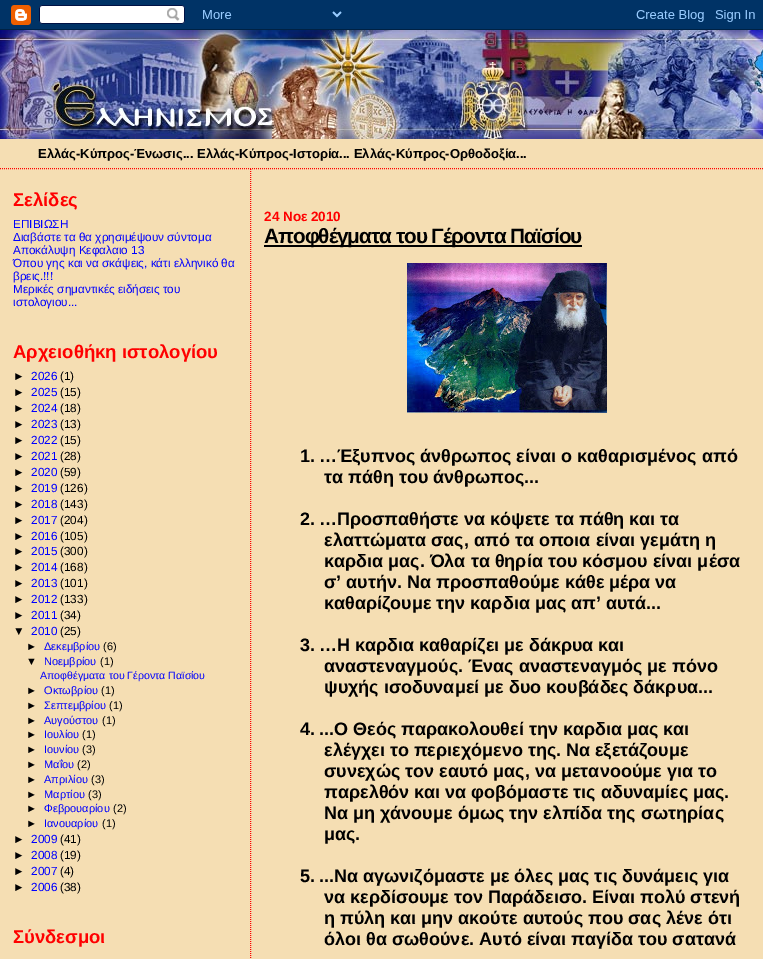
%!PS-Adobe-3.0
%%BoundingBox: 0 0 763 959
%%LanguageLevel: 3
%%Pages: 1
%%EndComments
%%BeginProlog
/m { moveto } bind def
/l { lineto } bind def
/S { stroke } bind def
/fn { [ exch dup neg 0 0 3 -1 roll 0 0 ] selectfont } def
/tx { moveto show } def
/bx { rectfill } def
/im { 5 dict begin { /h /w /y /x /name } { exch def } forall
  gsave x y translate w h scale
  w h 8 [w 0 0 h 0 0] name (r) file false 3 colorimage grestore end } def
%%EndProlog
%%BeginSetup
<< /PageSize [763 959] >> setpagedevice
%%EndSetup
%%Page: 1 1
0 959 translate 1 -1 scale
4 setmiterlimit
0.961 0.871 0.702 setrgbcolor
0 0 763 959 bx
(image0.raw) 0 0 763 30 im
1 0 0 setrgbcolor
[1 1] 0 setdash
0 168.5 m 763 168.5 l S
(image1.raw) 0 30 763 109 im
/LiberationSans-Bold 13 fn
0 setgray
(Ελλάς-Κύπρος-Ένωσις... Ελλάς-Κύπρος-Ιστορία... Ελλάς-Κύπρος-Ορθοδοξία...) 38 158 tx
/LiberationSans-Bold 18.5 fn
1 0 0 setrgbcolor
(Σελίδες) 13 206 tx
/LiberationSans-Regular 11.75 fn
0 0 1 setrgbcolor
(ΕΠΙΒΙΩΣΗ) 13 228 tx
(Διαβάστε τα θα χρησιμέψουν σύντομα) 13 241 tx
(Αποκάλυψη Κεφαλαιο 13) 13 254 tx
(Όπου γης και να σκάψεις, κάτι ελληνικό θα) 13 267 tx
(βρεις.!!!) 13 280 tx
(Μερικές σημαντικές ειδήσεις του) 13 293 tx
(ιστολογιου...) 13 306 tx
/LiberationSans-Bold 18.5 fn
1 0 0 setrgbcolor
(Αρχειοθήκη ιστολογίου) 13 358 tx
/LiberationSans-Regular 11.75 fn
0 setgray
(►) 13 380 tx
0 0 1 setrgbcolor
(2026) 31 380 tx
0 setgray
(\(1\)) 60 380 tx
(►) 13 396 tx
0 0 1 setrgbcolor
(2025) 31 396 tx
0 setgray
(\(15\)) 60 396 tx
(►) 13 412 tx
0 0 1 setrgbcolor
(2024) 31 412 tx
0 setgray
(\(18\)) 60 412 tx
(►) 13 428 tx
0 0 1 setrgbcolor
(2023) 31 428 tx
0 setgray
(\(13\)) 60 428 tx
(►) 13 444 tx
0 0 1 setrgbcolor
(2022) 31 444 tx
0 setgray
(\(15\)) 60 444 tx
(►) 13 460 tx
0 0 1 setrgbcolor
(2021) 31 460 tx
0 setgray
(\(28\)) 60 460 tx
(►) 13 476 tx
0 0 1 setrgbcolor
(2020) 31 476 tx
0 setgray
(\(59\)) 60 476 tx
(►) 13 492 tx
0 0 1 setrgbcolor
(2019) 31 492 tx
0 setgray
(\(126\)) 60 492 tx
(►) 13 508 tx
0 0 1 setrgbcolor
(2018) 31 508 tx
0 setgray
(\(143\)) 60 508 tx
(►) 13 524 tx
0 0 1 setrgbcolor
(2017) 31 524 tx
0 setgray
(\(204\)) 60 524 tx
(►) 13 540 tx
0 0 1 setrgbcolor
(2016) 31 540 tx
0 setgray
(\(105\)) 60 540 tx
(►) 13 555 tx
0 0 1 setrgbcolor
(2015) 31 555 tx
0 setgray
(\(300\)) 60 555 tx
(►) 13 571 tx
0 0 1 setrgbcolor
(2014) 31 571 tx
0 setgray
(\(168\)) 60 571 tx
(►) 13 587 tx
0 0 1 setrgbcolor
(2013) 31 587 tx
0 setgray
(\(101\)) 60 587 tx
(►) 13 603 tx
0 0 1 setrgbcolor
(2012) 31 603 tx
0 setgray
(\(133\)) 60 603 tx
(►) 13 619 tx
0 0 1 setrgbcolor
(2011) 31 619 tx
0 setgray
(\(34\)) 60 619 tx
(▼) 13 635 tx
0 0 1 setrgbcolor
(2010) 31 635 tx
0 setgray
(\(25\)) 60 635 tx
/LiberationSans-Regular 11 fn
(►) 26 650 tx
0 0 1 setrgbcolor
(Δεκεμβρίου) 44 650 tx
0 setgray
(\(6\)) 103 650 tx
(▼) 26 665 tx
0 0 1 setrgbcolor
(Νοεμβρίου) 44 665 tx
0 setgray
(\(1\)) 100 665 tx
/LiberationSans-Regular 10.6 fn
0 0 1 setrgbcolor
(Αποφθέγματα του Γέροντα Παϊσίου) 40 679 tx
/LiberationSans-Regular 11 fn
0 setgray
(►) 26 694 tx
0 0 1 setrgbcolor
(Οκτωβρίου) 44 694 tx
0 setgray
(\(1\)) 101 694 tx
(►) 26 709 tx
0 0 1 setrgbcolor
(Σεπτεμβρίου) 44 709 tx
0 setgray
(\(1\)) 109 709 tx
(►) 26 724 tx
0 0 1 setrgbcolor
(Αυγούστου) 44 724 tx
0 setgray
(\(1\)) 102 724 tx
(►) 26 738 tx
0 0 1 setrgbcolor
(Ιουλίου) 44 738 tx
0 setgray
(\(1\)) 82 738 tx
(►) 26 753 tx
0 0 1 setrgbcolor
(Ιουνίου) 44 753 tx
0 setgray
(\(3\)) 82 753 tx
(►) 26 768 tx
0 0 1 setrgbcolor
(Μαΐου) 44 768 tx
0 setgray
(\(2\)) 77 768 tx
(►) 26 783 tx
0 0 1 setrgbcolor
(Απριλίου) 44 783 tx
0 setgray
(\(3\)) 91 783 tx
(►) 26 798 tx
0 0 1 setrgbcolor
(Μαρτίου) 44 798 tx
0 setgray
(\(3\)) 88 798 tx
(►) 26 812 tx
0 0 1 setrgbcolor
(Φεβρουαρίου) 44 812 tx
0 setgray
(\(2\)) 113 812 tx
(►) 26 827 tx
0 0 1 setrgbcolor
(Ιανουαρίου) 44 827 tx
0 setgray
(\(1\)) 102 827 tx
/LiberationSans-Regular 11.75 fn
(►) 13 843 tx
0 0 1 setrgbcolor
(2009) 31 843 tx
0 setgray
(\(41\)) 60 843 tx
(►) 13 859 tx
0 0 1 setrgbcolor
(2008) 31 859 tx
0 setgray
(\(19\)) 60 859 tx
(►) 13 875 tx
0 0 1 setrgbcolor
(2007) 31 875 tx
0 setgray
(\(4\)) 60 875 tx
(►) 13 891 tx
0 0 1 setrgbcolor
(2006) 31 891 tx
0 setgray
(\(38\)) 60 891 tx
/LiberationSans-Bold 18.5 fn
1 0 0 setrgbcolor
(Σύνδεσμοι) 13 943 tx
250.5 169 m 250.5 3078 l S
/LiberationSans-Bold 13.5 fn
(24 Νοε 2010) 264 221 tx
0 setgray
264 245 318 2 bx
/LiberationSans-Bold 20.75 fn
264 243 m -1 0 (Αποφθέγματα του Γέροντα Παϊσίου) ashow
(image2.raw) 407 263 200 150 im
/LiberationSans-Bold 18 fn
(1.) 300 462 tx
(…Έξυπνος άνθρωπος είναι ο καθαρισμένος από) 319 462 tx
(τα πάθη του άνθρωπος...) 324 483 tx
(2.) 300 525 tx
(…Προσπαθήστε να κόψετε τα πάθη και τα) 319 525 tx
(ελαττώματα σας, από τα οποια είναι γεμάτη η) 324 546 tx
(καρδια μας. Όλα τα θηρία του κόσμου είναι μέσα) 324 567 tx
(σ’ αυτήν. Να προσπαθούμε κάθε μέρα να) 324 588 tx
(καθαρίζουμε την καρδια μας απ’ αυτά...) 324 609 tx
(3.) 300 651 tx
(…Η καρδια καθαρίζει με δάκρυα και) 319 651 tx
(αναστεναγμούς. Ένας αναστεναγμός με πόνο) 324 672 tx
(ψυχής ισοδυναμεί με δυο κουβάδες δάκρυα...) 324 693 tx
(4.) 300 735 tx
(...Ο Θεός παρακολουθεί την καρδια μας και) 319 735 tx
(ελέγχει το περιεχόμενο της. Να εξετάζουμε) 324 756 tx
(συνεχώς τον εαυτό μας, να μετανοούμε για το) 324 777 tx
(παρελθόν και να φοβόμαστε τις αδυναμίες μας.) 324 798 tx
(Να μη χάνουμε όμως την ελπίδα της σωτηρίας) 324 819 tx
(μας.) 324 840 tx
(5.) 300 882 tx
(...Να αγωνιζόμαστε με όλες μας τις δυνάμεις για) 319 882 tx
(να κερδίσουμε τον Παράδεισο. Είναι πολύ στενή) 324 903 tx
(η πύλη και μην ακούτε αυτούς που σας λένε ότι) 324 924 tx
(όλοι θα σωθούνε. Αυτό είναι παγίδα του σατανά) 324 945 tx
showpage
%%EOF
